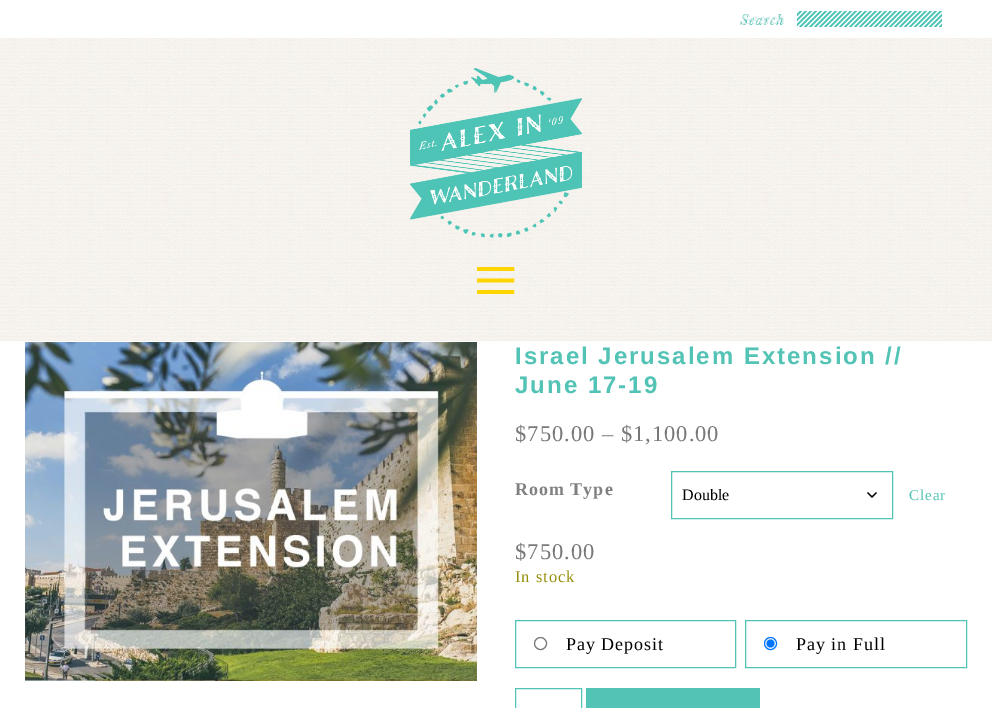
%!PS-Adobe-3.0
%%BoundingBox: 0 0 992 708
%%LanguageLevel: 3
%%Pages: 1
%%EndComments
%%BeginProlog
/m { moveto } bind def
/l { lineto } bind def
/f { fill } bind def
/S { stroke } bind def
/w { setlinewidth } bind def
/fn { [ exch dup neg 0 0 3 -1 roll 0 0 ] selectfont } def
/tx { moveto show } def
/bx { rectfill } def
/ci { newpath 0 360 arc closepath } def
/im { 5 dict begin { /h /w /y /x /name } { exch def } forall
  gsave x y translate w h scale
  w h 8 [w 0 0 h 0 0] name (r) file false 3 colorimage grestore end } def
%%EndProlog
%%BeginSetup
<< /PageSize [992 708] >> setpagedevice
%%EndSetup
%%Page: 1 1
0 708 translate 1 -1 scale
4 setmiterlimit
1 setgray
0 0 992 708 bx
(image0.raw) 0 38 992 303 im
(image1.raw) 740 13 43 12 im
/LiberationSans-Regular 13.5 fn
0.827 0.933 0.922 setrgbcolor
(Search) 742 24 tx
(image2.raw) 797 11 145 16 im
(image3.raw) 410 68 172 170 im
/LiberationSerif-Regular 80 fn
1 0.835 0.004 setrgbcolor
473 307 m 1 0 (≡) ashow
(image4.raw) 25 342 452 339 im
/LiberationSans-Bold 24 fn
0.325 0.765 0.71 setrgbcolor
515 364 m 2 0 (Israel Jerusalem Extension //) ashow
515 393 m 2 0 (June 17-19) ashow
/LiberationSerif-Regular 22.5 fn
0.471 setgray
515 441 m 1 0 ($750.00 – $1,100.00) ashow
/LiberationSerif-Bold 18 fn
0.502 setgray
515 495 m 1 0 (Room Type) ashow
0 setgray
1.3 w
1 setlinecap
1 setlinejoin
868 493 m 872 497 l 876 493 l S
0.325 0.765 0.71 setrgbcolor
1 w
0 setlinecap
0 setlinejoin
671.5 471.5 221 47 rectstroke
/LiberationSerif-Regular 16 fn
0 setgray
(Double) 682 500 tx
/LiberationSerif-Regular 15 fn
0.325 0.765 0.71 setrgbcolor
909 500 m 1 0 (Clear) ashow
/LiberationSerif-Regular 22.5 fn
0.471 setgray
515 559 m 1 0 ($750.00) ashow
/LiberationSerif-Regular 16.5 fn
0.584 0.557 0.035 setrgbcolor
515 582 m 1 0 (In stock) ashow
0.325 0.765 0.71 setrgbcolor
515.5 620.5 220 47 rectstroke
0.463 setgray
540.5 643.5 6 ci S
/LiberationSerif-Regular 18 fn
0 setgray
566 650 m 1 0 (Pay Deposit) ashow
0.325 0.765 0.71 setrgbcolor
745.5 620.5 221 47 rectstroke
0 0.459 1 setrgbcolor
770.5 643.5 6 ci S
770.5 643.5 4 ci f
0 setgray
796 650 m 1 0 (Pay in Full) ashow
0.325 0.765 0.71 setrgbcolor
515.5 688.5 66 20 rectstroke
586 688 174 20 bx
showpage
%%EOF
